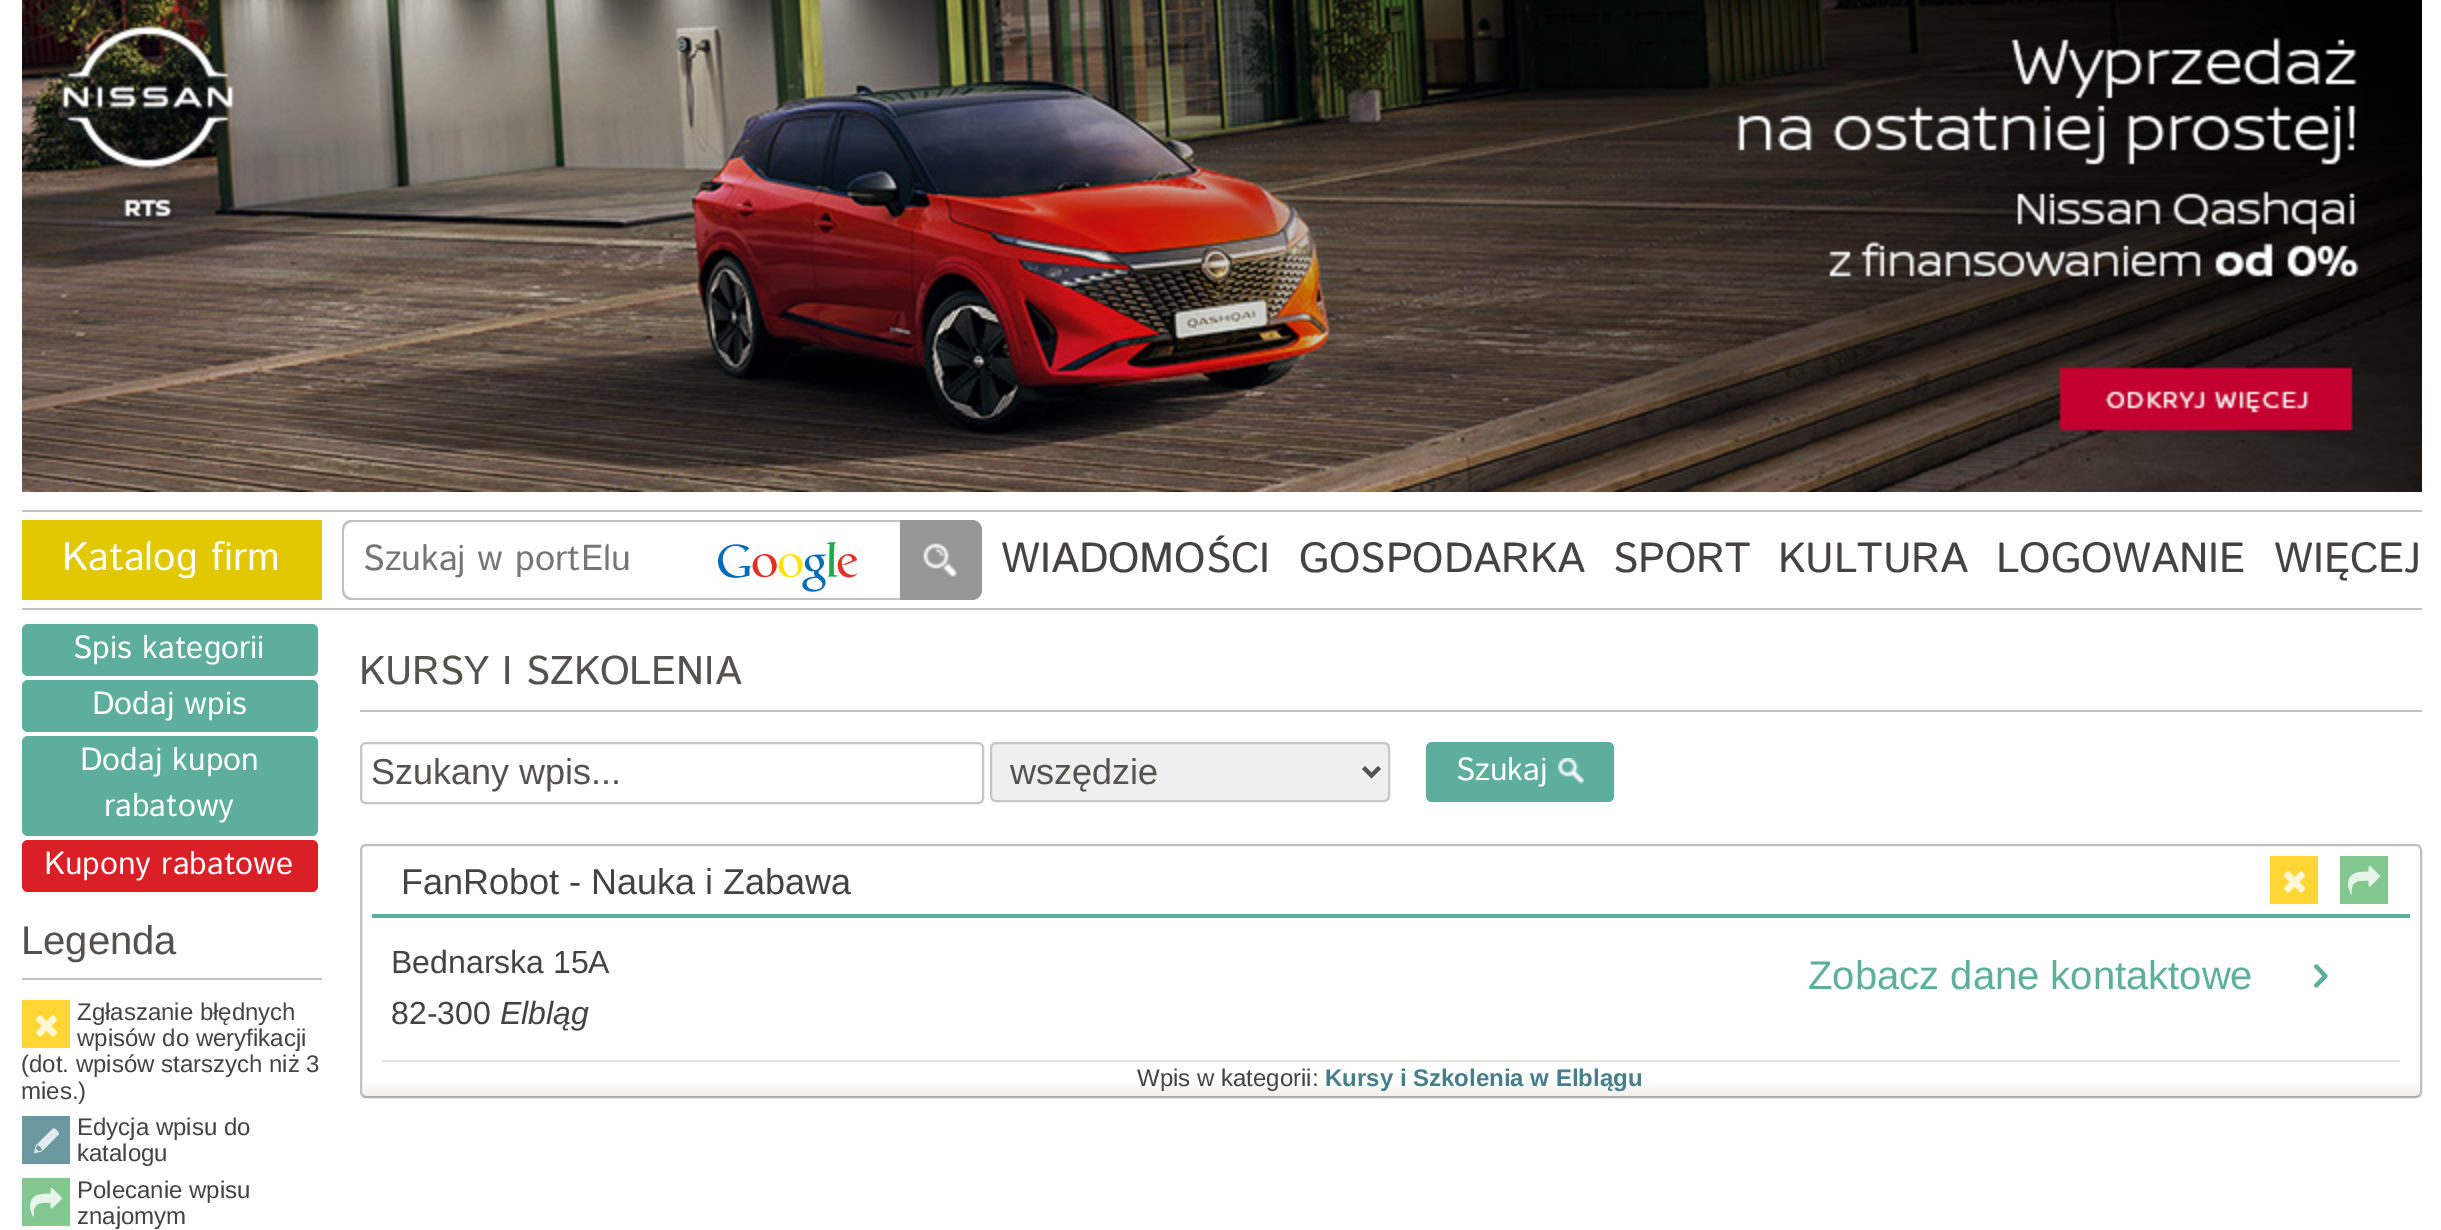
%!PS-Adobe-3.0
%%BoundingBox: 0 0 2441 1230
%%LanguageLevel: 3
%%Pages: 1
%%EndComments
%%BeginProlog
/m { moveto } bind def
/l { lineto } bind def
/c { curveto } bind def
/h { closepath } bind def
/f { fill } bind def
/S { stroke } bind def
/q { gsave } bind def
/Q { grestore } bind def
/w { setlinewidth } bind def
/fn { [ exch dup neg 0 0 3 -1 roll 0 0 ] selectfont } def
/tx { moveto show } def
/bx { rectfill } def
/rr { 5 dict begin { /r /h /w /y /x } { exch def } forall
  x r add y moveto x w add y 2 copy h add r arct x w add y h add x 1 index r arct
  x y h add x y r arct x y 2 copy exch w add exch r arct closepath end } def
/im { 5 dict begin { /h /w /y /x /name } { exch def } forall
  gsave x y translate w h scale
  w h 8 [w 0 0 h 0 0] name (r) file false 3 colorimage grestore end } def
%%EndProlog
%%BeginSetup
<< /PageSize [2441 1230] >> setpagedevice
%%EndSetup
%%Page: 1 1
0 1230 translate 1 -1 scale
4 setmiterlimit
1 setgray
0 0 2441 1230 bx
(image0.raw) 22 0 2400 492 im
0.753 0.753 0.749 setrgbcolor
22 510 2400 2 bx
22 608 2400 2 bx
0.882 0.784 0.004 setrgbcolor
22 520 300 80 bx
/IstokWeb-Regular 40 fn
1 setgray
(Katalog firm) 62 570 tx
(image1.raw) 718 542 140 50 im
0.753 0.753 0.749 setrgbcolor
352 520 m 900 520 l 900 600 l 352 600 l 346 600 342 596 342 590 c 342 530 l 342 524 346 520 352 520 c h 352 522 m 900 522 l 900 598 l 352 598 l 348 598 344 594 344 590 c 344 530 l 344 526 348 522 352 522 c h eofill
/IstokWeb-Regular 36 fn
0.459 setgray
(Szukaj w portElu) 363 570 tx
0.588 0.588 0.584 setrgbcolor
900 520 m 972 520 l 977.5 520 982 524.5 982 530 c 982 590 l 982 595.5 977.5 600 972 600 c 900 600 l h f
(image2.raw) 923 543 34 34 im
/IstokWeb-Regular 42 fn
0.267 0.263 0.247 setrgbcolor
(WIADOMOŚCI) 1001 572 tx
(GOSPODARKA) 1299 572 tx
(SPORT) 1613 572 tx
(KULTURA) 1778 572 tx
(LOGOWANIE) 1996 572 tx
(WIĘCEJ) 2274 572 tx
0.369 0.682 0.616 setrgbcolor
22 624 296 52 6 rr f
/IstokWeb-Regular 32 fn
1 setgray
(Spis kategorii) 73 658 tx
0.369 0.682 0.616 setrgbcolor
22 680 296 52 6 rr f
1 setgray
(Dodaj wpis) 92 714 tx
0.369 0.682 0.616 setrgbcolor
22 736 296 100 6 rr f
1 setgray
(Dodaj kupon) 80 770 tx
(rabatowy) 104 816 tx
0.859 0.122 0.149 setrgbcolor
22 840 296 52 6 rr f
1 setgray
(Kupony rabatowe) 44 874 tx
0.753 0.753 0.749 setrgbcolor
22 978 300 2 bx
/LiberationSans-Regular 40 fn
0.329 0.322 0.302 setrgbcolor
(Legenda) 21 954 tx
1 0.839 0.2 setrgbcolor
22 1000 48 48 bx
(image3.raw) 36 1015 22 22 im
/LiberationSans-Regular 24 fn
0.267 0.263 0.247 setrgbcolor
(Zgłaszanie błędnych) 77 1020 tx
(wpisów do weryfikacji) 77 1046 tx
(\(dot. wpisów starszych niż 3) 21 1072 tx
(mies.\)) 21 1099 tx
0.42 0.596 0.631 setrgbcolor
22 1116 48 48 bx
(image4.raw) 34 1128 25 26 im
0.267 0.263 0.247 setrgbcolor
(Edycja wpisu do) 77 1135 tx
(katalogu) 77 1161 tx
0.518 0.784 0.569 setrgbcolor
22 1178 48 48 bx
(image5.raw) 30 1188 32 29 im
0.267 0.263 0.247 setrgbcolor
(Polecanie wpisu) 77 1198 tx
(znajomym) 77 1224 tx
0.753 0.753 0.749 setrgbcolor
360 710 2062 2 bx
/IstokWeb-Regular 40 fn
0.329 0.322 0.302 setrgbcolor
(KURSY I SZKOLENIA) 359 684 tx
0.776 setgray
2 w
361 743 622 60 5 rr S
/LiberationSans-Regular 36 fn
0.329 0.322 0.302 setrgbcolor
(Szukany wpis...) 371 784 tx
0.937 setgray
991 743 398 58 5 rr q f Q
0.776 setgray
S
0.329 0.322 0.302 setrgbcolor
4 w
1363.5 767.5 m 1371.5 775.5 l 1379.5 767.5 l S
(wszędzie) 1010 784 tx
0.369 0.682 0.616 setrgbcolor
1426 742 188 60 6 rr f
/IstokWeb-Regular 32 fn
1 setgray
(Szukaj) 1456 780 tx
(image6.raw) 1558 758 26 26 im
(image7.raw) 360 1083 2062 13 im
0.686 setgray
2 w
2419.5 1095.5 m 2418.5 1096.5 2417.5 1097 2416 1097 c 366 1097 l 364.5 1097 363.5 1096.5 362.5 1095.5 c S
0.753 0.753 0.749 setrgbcolor
362.5 1095.5 m 361.5 1094.5 361 1093.5 361 1092 c 361 850 l 361 848.5 361.5 847.5 362.5 846.5 c 363.5 845.5 364.5 845 366 845 c 2416 845 l 2417.5 845 2418.5 845.5 2419.5 846.5 c 2420.5 847.5 2421 848.5 2421 850 c 2421 1092 l 2421 1093.5 2420.5 1094.5 2419.5 1095.5 c S
0.369 0.682 0.616 setrgbcolor
372 914 2038 4 bx
/LiberationSans-Regular 36 fn
0.267 0.263 0.247 setrgbcolor
(FanRobot - Nauka i Zabawa) 401 894 tx
1 0.839 0.2 setrgbcolor
2270 856 48 48 bx
(image3.raw) 2284 871 22 22 im
0.518 0.784 0.569 setrgbcolor
2340 856 48 48 bx
(image5.raw) 2348 866 32 29 im
/LiberationSans-Regular 32 fn
0.267 0.263 0.247 setrgbcolor
(Bednarska 15A) 391 973 tx
(82-300) 391 1024 tx
/LiberationSans-Italic 32 fn
(Elbląg) 500 1024 tx
/LiberationSans-Regular 40 fn
0.369 0.682 0.616 setrgbcolor
(Zobacz dane kontaktowe) 1808 989 tx
(image8.raw) 2314 964 14 24 im
0.902 0.894 0.871 setrgbcolor
382 1060 2018 2 bx
/LiberationSans-Regular 24 fn
0.267 0.263 0.247 setrgbcolor
(Wpis w kategorii:) 1137 1086 tx
/LiberationSans-Bold 24 fn
0.275 0.494 0.541 setrgbcolor
(Kursy i Szkolenia w Elblągu) 1325 1086 tx
showpage
%%EOF
